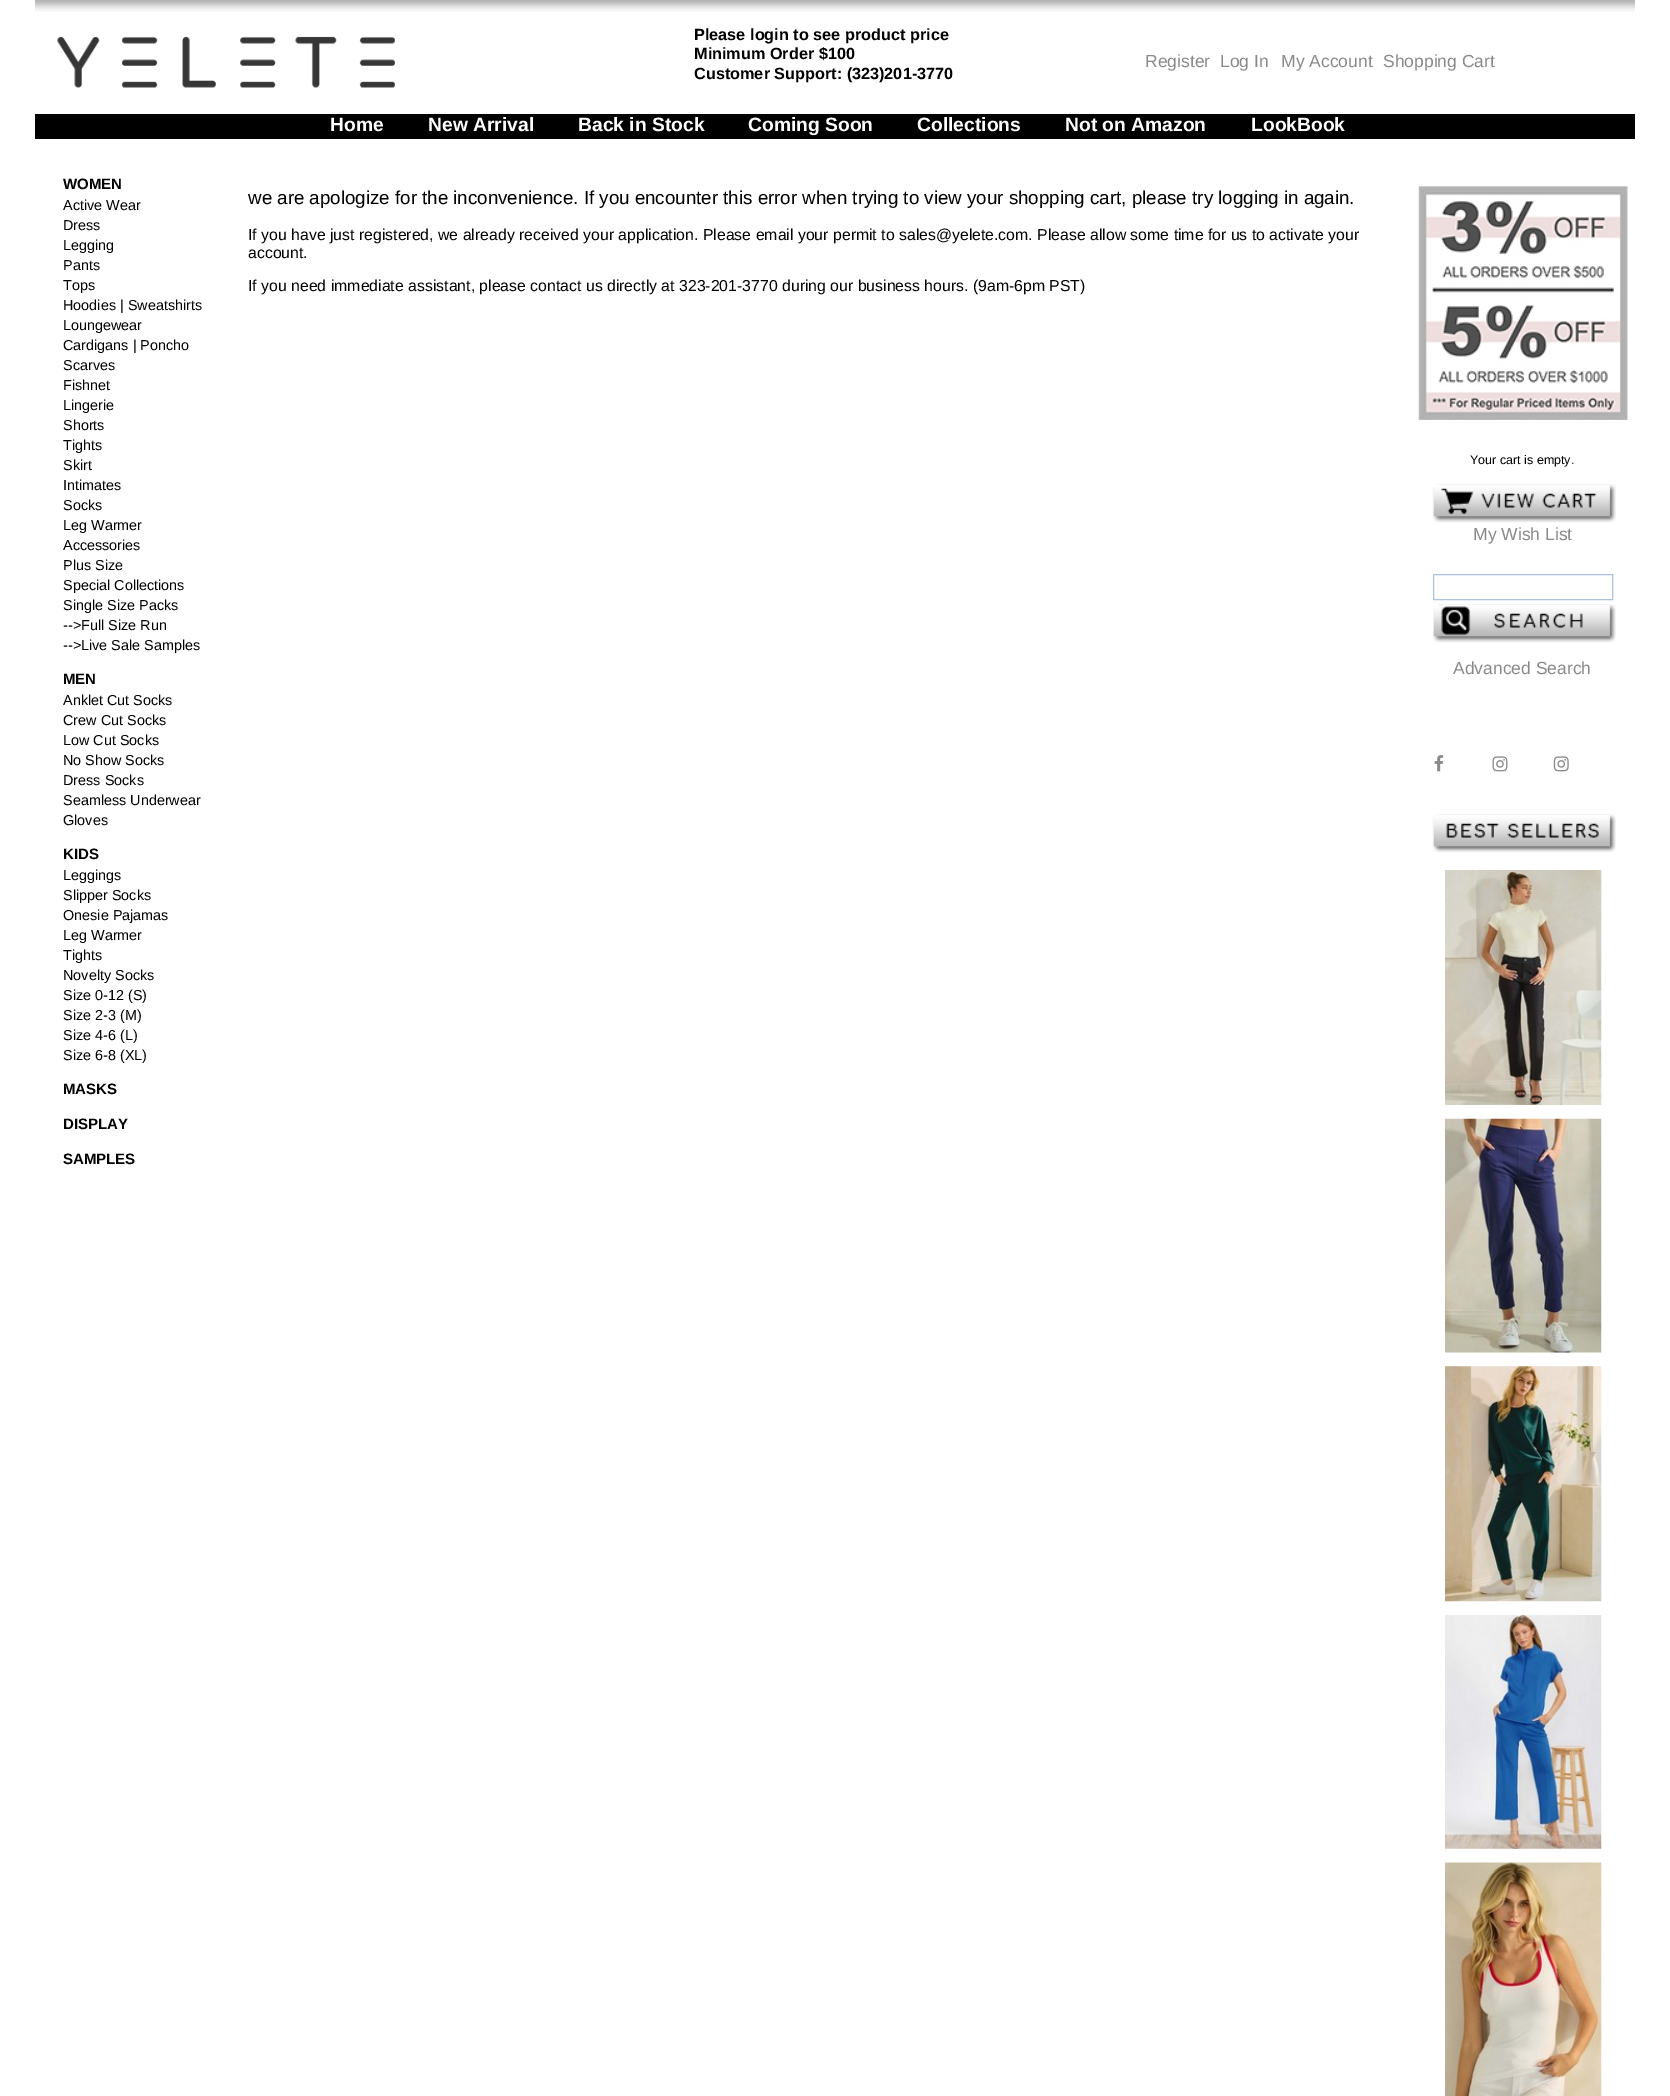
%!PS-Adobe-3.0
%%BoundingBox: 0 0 1670 2096
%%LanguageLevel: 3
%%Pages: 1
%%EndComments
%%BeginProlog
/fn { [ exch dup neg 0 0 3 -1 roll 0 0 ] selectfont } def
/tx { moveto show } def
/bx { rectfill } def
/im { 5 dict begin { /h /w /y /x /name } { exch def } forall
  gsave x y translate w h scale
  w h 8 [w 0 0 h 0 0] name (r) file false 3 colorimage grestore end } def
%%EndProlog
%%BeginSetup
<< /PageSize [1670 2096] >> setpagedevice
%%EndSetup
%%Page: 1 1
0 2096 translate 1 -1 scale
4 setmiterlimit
1 setgray
0 0 1670 2096 bx
(image0.raw) 35 0 1600 12 im
(image1.raw) 57 36 338 52 im
/LiberationSans-Bold 16.25 fn
0 setgray
(Please login to see product price) 694 40 tx
(Minimum Order $100) 694 59 tx
(Customer Support: \(323\)201-3770) 694 79 tx
/LiberationSans-Regular 17.5 fn
0.537 setgray
(Register) 1145 67 tx
(Log In) 1220 67 tx
(My Account) 1281 67 tx
(Shopping Cart) 1383 67 tx
0 setgray
35 114 1600 25 bx
/LiberationSans-Bold 19.25 fn
1 setgray
(Home) 330 131 tx
(New Arrival) 428 131 tx
(Back in Stock) 578 131 tx
(Coming Soon) 748 131 tx
(Collections) 917 131 tx
(Not on Amazon) 1065 131 tx
(LookBook) 1251 131 tx
/LiberationSans-Bold 15 fn
0 setgray
(WOMEN) 63 189 tx
/LiberationSans-Regular 14.4 fn
(Active Wear) 63 210 tx
(Dress) 63 230 tx
(Legging) 63 250 tx
(Pants) 63 270 tx
(Tops) 63 290 tx
(Hoodies | Sweatshirts) 63 310 tx
(Loungewear) 63 330 tx
(Cardigans | Poncho) 63 350 tx
(Scarves) 63 370 tx
(Fishnet) 63 390 tx
(Lingerie) 63 410 tx
(Shorts) 63 430 tx
(Tights) 63 450 tx
(Skirt) 63 470 tx
(Intimates) 63 490 tx
(Socks) 63 510 tx
(Leg Warmer) 63 530 tx
(Accessories) 63 550 tx
(Plus Size) 63 570 tx
(Special Collections) 63 590 tx
(Single Size Packs) 63 610 tx
(-->Full Size Run) 63 630 tx
(-->Live Sale Samples) 63 650 tx
/LiberationSans-Bold 15 fn
(MEN) 63 684 tx
/LiberationSans-Regular 14.4 fn
(Anklet Cut Socks) 63 705 tx
(Crew Cut Socks) 63 725 tx
(Low Cut Socks) 63 745 tx
(No Show Socks) 63 765 tx
(Dress Socks) 63 785 tx
(Seamless Underwear) 63 805 tx
(Gloves) 63 825 tx
/LiberationSans-Bold 15 fn
(KIDS) 63 859 tx
/LiberationSans-Regular 14.4 fn
(Leggings) 63 880 tx
(Slipper Socks) 63 900 tx
(Onesie Pajamas) 63 920 tx
(Leg Warmer) 63 940 tx
(Tights) 63 960 tx
(Novelty Socks) 63 980 tx
(Size 0-12 \(S\)) 63 1000 tx
(Size 2-3 \(M\)) 63 1020 tx
(Size 4-6 \(L\)) 63 1040 tx
(Size 6-8 \(XL\)) 63 1060 tx
/LiberationSans-Bold 15 fn
(MASKS) 63 1094 tx
(DISPLAY) 63 1129 tx
(SAMPLES) 63 1164 tx
/LiberationSans-Regular 18.75 fn
(we are apologize for the inconvenience. If you encounter this error when trying to view your shopping cart, please try logging in again.) 248 204 tx
/LiberationSans-Regular 15.83 fn
(If you have just registered, we already received your application. Please email your permit to sales@yelete.com. Please allow some time for us to activate your) 248 240 tx
(account.) 248 258 tx
(If you need immediate assistant, please contact us directly at 323-201-3770 during our business hours. \(9am-6pm PST\)) 248 291 tx
(image2.raw) 1418 186 210 234 im
/LiberationSans-Regular 12.5 fn
(Your cart is empty.) 1470 464 tx
(image3.raw) 1432 484 184 39 im
/LiberationSans-Regular 17.5 fn
0.537 setgray
(My Wish List) 1473 540 tx
0.671 0.757 0.871 setrgbcolor
1433.5 574.5 179 25 rectstroke
(image4.raw) 1433 604 183 39 im
0.537 setgray
(Advanced Search) 1453 674 tx
(image5.raw) 1434 755 10 17 im
(image6.raw) 1492 756 16 16 im
(image7.raw) 1553 756 16 16 im
(image8.raw) 1432 814 184 39 im
(image9.raw) 1445 870 157 235 im
(image10.raw) 1445 1118 157 235 im
(image11.raw) 1445 1366 157 236 im
(image12.raw) 1445 1615 157 234 im
(image13.raw) 1445 1862 157 234 im
showpage
%%EOF
